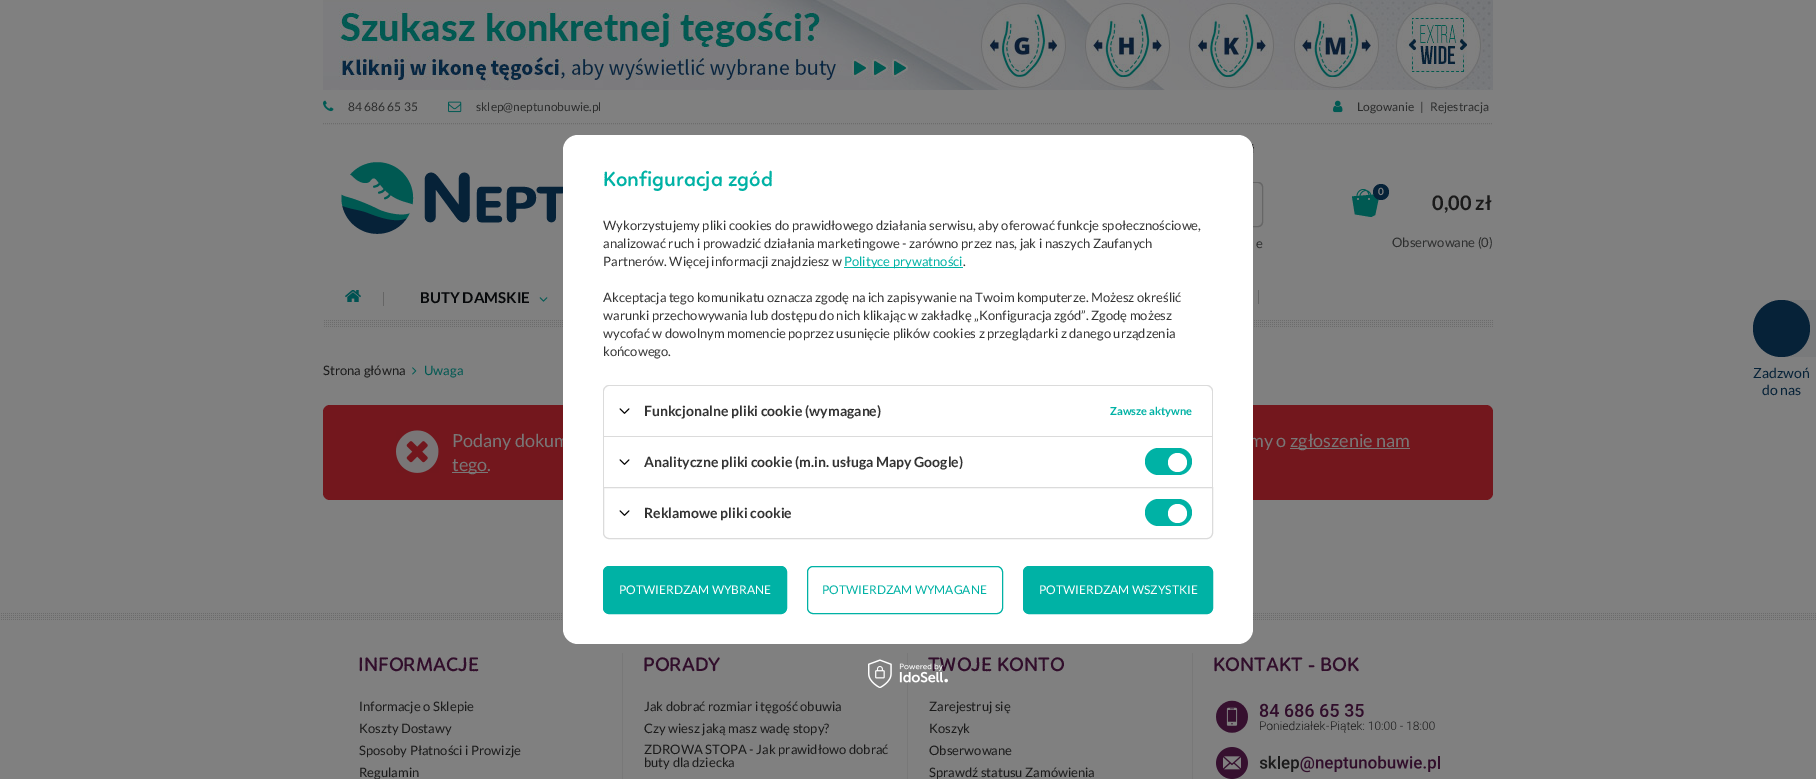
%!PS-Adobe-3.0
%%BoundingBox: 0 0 1816 779
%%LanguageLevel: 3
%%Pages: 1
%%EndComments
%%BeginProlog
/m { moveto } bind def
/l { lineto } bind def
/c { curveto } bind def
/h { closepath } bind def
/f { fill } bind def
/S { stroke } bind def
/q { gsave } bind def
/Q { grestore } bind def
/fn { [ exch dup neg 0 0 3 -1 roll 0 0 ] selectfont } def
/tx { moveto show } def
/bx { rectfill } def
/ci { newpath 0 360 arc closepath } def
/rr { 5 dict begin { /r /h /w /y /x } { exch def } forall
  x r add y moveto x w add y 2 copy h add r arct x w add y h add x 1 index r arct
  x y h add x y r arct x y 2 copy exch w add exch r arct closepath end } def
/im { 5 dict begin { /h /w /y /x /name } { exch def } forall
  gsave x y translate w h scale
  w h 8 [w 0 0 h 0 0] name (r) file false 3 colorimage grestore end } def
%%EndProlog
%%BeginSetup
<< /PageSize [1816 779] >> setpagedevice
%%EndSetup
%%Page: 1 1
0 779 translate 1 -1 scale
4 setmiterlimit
0.502 setgray
0 0 1816 779 bx
(image0.raw) 323 0 1170 90 im
0.424 setgray
[1 1] 0 setdash
323 123.5 m 1493 123.5 l S
(image1.raw) 323 100 11 12 im
/Lato-Regular 12 fn
0.173 0.176 0.176 setrgbcolor
(84 686 65 35) 348 111 tx
(image2.raw) 448 101 14 12 im
(sklep@neptunobuwie.pl) 476 111 tx
(image3.raw) 1333 100 10 13 im
(Logowanie) 1357 111 tx
0.239 setgray
(|) 1420 111 tx
0.173 0.176 0.176 setrgbcolor
(Rejestracja) 1430 111 tx
(image4.raw) 341 162 222 72 im
(image5.raw) 1238 135 16 26 im
0.4 setgray
[] 0 setdash
783.5 182.5 479 44 4.5 rr S
0.502 setgray
1215 182 m 1258 182 l 1261 182 1263 184 1263 187 c 1263 222 l 1263 225 1261 227 1258 227 c 1215 227 l h f
0.4 setgray
1215 182 m 1258 182 l 1261 182 1263 184 1263 187 c 1263 222 l 1263 225 1261 227 1258 227 c 1215 227 l h 1215 183 m 1258 183 l 1260 183 1262 185 1262 187 c 1262 222 l 1262 224 1260 226 1258 226 c 1215 226 l h eofill
/Lato-Regular 13 fn
0.173 0.176 0.176 setrgbcolor
(e) 1256 248 tx
(image6.raw) 1352 189 27 28 im
0.024 0.133 0.22 setrgbcolor
1381 192 8 ci f
/Lato-Bold 10 fn
0.502 setgray
(0) 1378 195 tx
/Lato-Bold 20 fn
0.102 setgray
(0,00 zł) 1432 210 tx
/Lato-Regular 13 fn
0.173 0.176 0.176 setrgbcolor
(Obserwowane \(0\)) 1392 247 tx
0.396 setgray
383 292 1 14 bx
(image7.raw) 345 290 16 12 im
/Lato-Bold 15 fn
0.027 0.035 0.043 setrgbcolor
(BUTY DAMSKIE) 420 303 tx
(image8.raw) 539 297 9 5 im
0.396 setgray
1258 290 1 14 bx
(image9.raw) 324 320 1169 7 im
/Lato-Regular 13 fn
0.102 setgray
(Strona główna) 323 375 tx
(image10.raw) 412 367 5 8 im
0 0.349 0.325 setrgbcolor
(Uwaga) 424 375 tx
0.451 0.09 0.114 setrgbcolor
323 405 1170 95 7 rr f
(image11.raw) 396 430 43 43 im
/Lato-Regular 18 fn
0.475 0.467 0.467 setrgbcolor
(Podany dokum) 452 447 tx
(my o) 1249 447 tx
1290 448 120 1 bx
(zgłoszenie nam) 1290 447 tx
452 472 36 1 bx
(tego.) 452 471 tx
(image12.raw) 1 613 1815 7 im
0.471 setgray
622 653 1 126 bx
/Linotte-SemiBold 20 fn
0.192 0.055 0.169 setrgbcolor
(INFORMACJE) 358 671 tx
/Lato-Regular 13 fn
0.102 setgray
(Informacje o Sklepie) 359 711 tx
(Koszty Dostawy) 359 733 tx
(Sposoby Płatności i Prowizje) 359 755 tx
(Regulamin) 359 777 tx
0.471 setgray
907 653 1 126 bx
/Linotte-SemiBold 20 fn
0.192 0.055 0.169 setrgbcolor
(PORADY) 643 671 tx
/Lato-Regular 13 fn
0.102 setgray
(Jak dobrać rozmiar i tęgość obuwia) 644 711 tx
(Czy wiesz jaką masz wadę stopy?) 644 733 tx
(ZDROWA STOPA - Jak prawidłowo dobrać) 644 754 tx
(buty dla dziecka) 644 767 tx
0.471 setgray
1192 653 1 126 bx
/Linotte-SemiBold 20 fn
0.192 0.055 0.169 setrgbcolor
(TWOJE KONTO) 928 671 tx
/Lato-Regular 13 fn
0.102 setgray
(Zarejestruj się) 929 711 tx
(Koszyk) 929 733 tx
(Obserwowane) 929 755 tx
(Sprawdź statusu Zamówienia) 929 777 tx
/Linotte-SemiBold 20 fn
0.192 0.055 0.169 setrgbcolor
(KONTAKT - BOK) 1213 671 tx
(image13.raw) 1216 700 219 33 im
(image14.raw) 1216 747 224 32 im
1 setgray
563 135 690 509 15 rr f
/Linotte-SemiBold 21 fn
0 0.698 0.647 setrgbcolor
(Konfiguracja zgód) 603 186 tx
/Lato-Regular 13 fn
0.2 setgray
(Wykorzystujemy pliki cookies do prawidłowego działania serwisu, aby oferować funkcje społecznościowe,) 603 230 tx
(analizować ruch i prowadzić działania marketingowe - zarówno przez nas, jak i naszych Zaufanych) 603 248 tx
(Partnerów. Więcej informacji znajdziesz w) 603 266 tx
0 0.698 0.647 setrgbcolor
844 267 119 1 bx
(Polityce prywatności) 844 266 tx
0.2 setgray
(.) 963 266 tx
(Akceptacja tego komunikatu oznacza zgodę na ich zapisywanie na Twoim komputerze. Możesz określić) 603 302 tx
(warunki przechowywania lub dostępu do nich klikając w zakładkę „Konfiguracja zgód”. Zgodę możesz) 603 320 tx
(wycofać w dowolnym momencie poprzez usunięcie plików cookies z przeglądarki z danego urządzenia) 603 338 tx
(końcowego.) 603 356 tx
0.859 setgray
609 385 m 1207 385 l 1210 385 1213 388 1213 391 c 1213 436 l 603 436 l 603 391 l 603 388 606 385 609 385 c h 609 386 m 1207 386 l 1210 386 1212 389 1212 391 c 1212 436 l 604 436 l 604 391 l 604 389 606 386 609 386 c h eofill
(image15.raw) 619 408 11 6 im
/Lato-Bold 14 fn
0.2 setgray
(Funkcjonalne pliki cookie \(wymagane\)) 644 416 tx
/Lato-Bold 11 fn
0 0.698 0.647 setrgbcolor
(Zawsze aktywne) 1110 415 tx
0.859 setgray
603 436 610 1 bx
1212 436 1 51 bx
603 436 1 51 bx
(image15.raw) 619 459 11 6 im
/Lato-Bold 14 fn
0.2 setgray
(Analityczne pliki cookie \(m.in. usługa Mapy Google\)) 644 467 tx
0 0.698 0.647 setrgbcolor
1145 448 47 27 13.5 rr f
1 setgray
1177.5 462.5 9.5 ci f
0.859 setgray
603.5 487.5 m 1212.5 487.5 l 1212.5 533 l 1212.5 536 1210 538.5 1207 538.5 c 609 538.5 l 606 538.5 603.5 536 603.5 533 c h S
(image15.raw) 619 510 11 6 im
0.2 setgray
(Reklamowe pliki cookie) 644 518 tx
0 0.698 0.647 setrgbcolor
1145 499 47 27 13.5 rr f
1 setgray
1177.5 513.5 9.5 ci f
0 0.698 0.647 setrgbcolor
603.5 566.5 183 47 5.5 rr q f Q
S
/Lato-Regular 12 fn
1 setgray
(POTWIERDZAM WYBRANE) 619 594 tx
0 0.698 0.647 setrgbcolor
807.5 566.5 195 47 5.5 rr S
(POTWIERDZAM WYMAGANE) 822 594 tx
1023.5 566.5 189 47 5.5 rr q f Q
S
1 setgray
(POTWIERDZAM WSZYSTKIE) 1039 594 tx
(image16.raw) 868 659 80 29 im
0.475 0.478 0.482 setrgbcolor
1781.5 300 m 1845 300 l 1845 357 l 1781.5 357 l 1766 357 1753 344 1753 328.5 c 1753 313 1766 300 1781.5 300 c h f
0.024 0.133 0.22 setrgbcolor
1781.5 328.5 28.5 ci f
/Lato-Regular 14 fn
(Zadzwoń) 1753 378 tx
(do nas) 1762 395 tx
showpage
%%EOF
